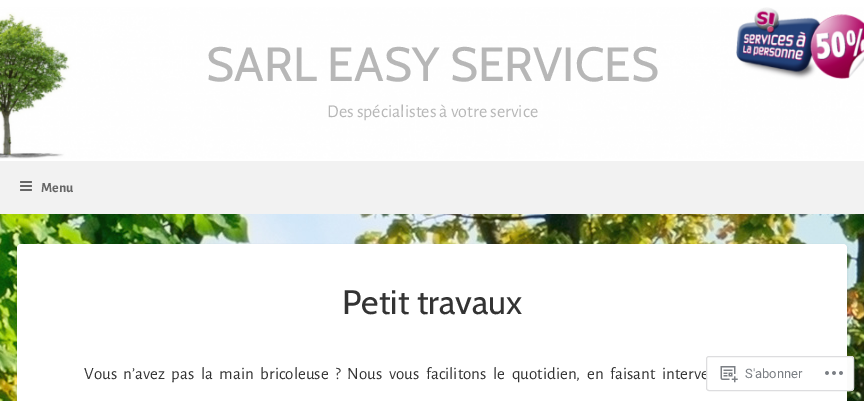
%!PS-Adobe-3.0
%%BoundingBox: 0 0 864 401
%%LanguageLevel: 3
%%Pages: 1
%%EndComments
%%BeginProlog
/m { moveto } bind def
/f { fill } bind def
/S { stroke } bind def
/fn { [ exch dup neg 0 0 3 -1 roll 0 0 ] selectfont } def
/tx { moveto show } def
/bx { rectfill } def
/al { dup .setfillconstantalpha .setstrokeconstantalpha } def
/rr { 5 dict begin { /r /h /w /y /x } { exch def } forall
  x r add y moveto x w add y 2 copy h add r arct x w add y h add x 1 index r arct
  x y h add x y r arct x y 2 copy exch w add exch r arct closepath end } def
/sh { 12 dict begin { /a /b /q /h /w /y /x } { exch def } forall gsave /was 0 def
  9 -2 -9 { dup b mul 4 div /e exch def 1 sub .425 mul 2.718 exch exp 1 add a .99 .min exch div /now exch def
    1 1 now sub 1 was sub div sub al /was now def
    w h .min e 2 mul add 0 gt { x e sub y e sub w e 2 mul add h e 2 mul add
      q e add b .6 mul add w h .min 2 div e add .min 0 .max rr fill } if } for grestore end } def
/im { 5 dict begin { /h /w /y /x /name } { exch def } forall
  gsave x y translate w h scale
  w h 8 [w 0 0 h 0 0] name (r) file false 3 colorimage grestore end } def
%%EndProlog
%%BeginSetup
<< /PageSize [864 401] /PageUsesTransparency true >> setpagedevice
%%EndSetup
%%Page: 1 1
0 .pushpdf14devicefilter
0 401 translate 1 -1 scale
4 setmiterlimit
1 setgray
0 0 864 401 bx
(image0.raw) 0 214 864 187 im
(image1.raw) 0 7 864 152 im
/Cabin-Regular 48 fn
0.718 setgray
(SARL EASY SERVICES) 206 81 tx
/AlegreyaSans-Regular 18 fn
(Des spécialistes à votre service) 327 117 tx
0.949 setgray
0 161 864 53 bx
(image2.raw) 20 181 12 10 im
/AlegreyaSans-Bold 14 fn
0.4 setgray
(Menu) 41 192 tx
0 setgray
17 245 830 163 4 1 0.1 sh
1 setgray
17 244 830 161 4 rr f
/Cabin-Regular 34 fn
0.2 setgray
(Petit travaux) 342 314 tx
/AlegreyaSans-Regular 17 fn
84 379 m 3.75 0 32 (Vous n’avez pas la main bricoleuse ? Nous vous facilitons le quotidien, en faisant interve) widthshow
0.98 al
1 setgray
706 356 148 35 3 rr f
0.863 0.863 0.871 setrgbcolor
706.5 356.5 147 34 2.5 rr S
1 al
(image3.raw) 720 366 18 17 im
/Roboto-Regular 13 fn
0.482 0.498 0.518 setrgbcolor
(S'abonner) 745 378 tx
(image4.raw) 825 371 18 4 im
.poppdf14devicefilter showpage
%%EOF
